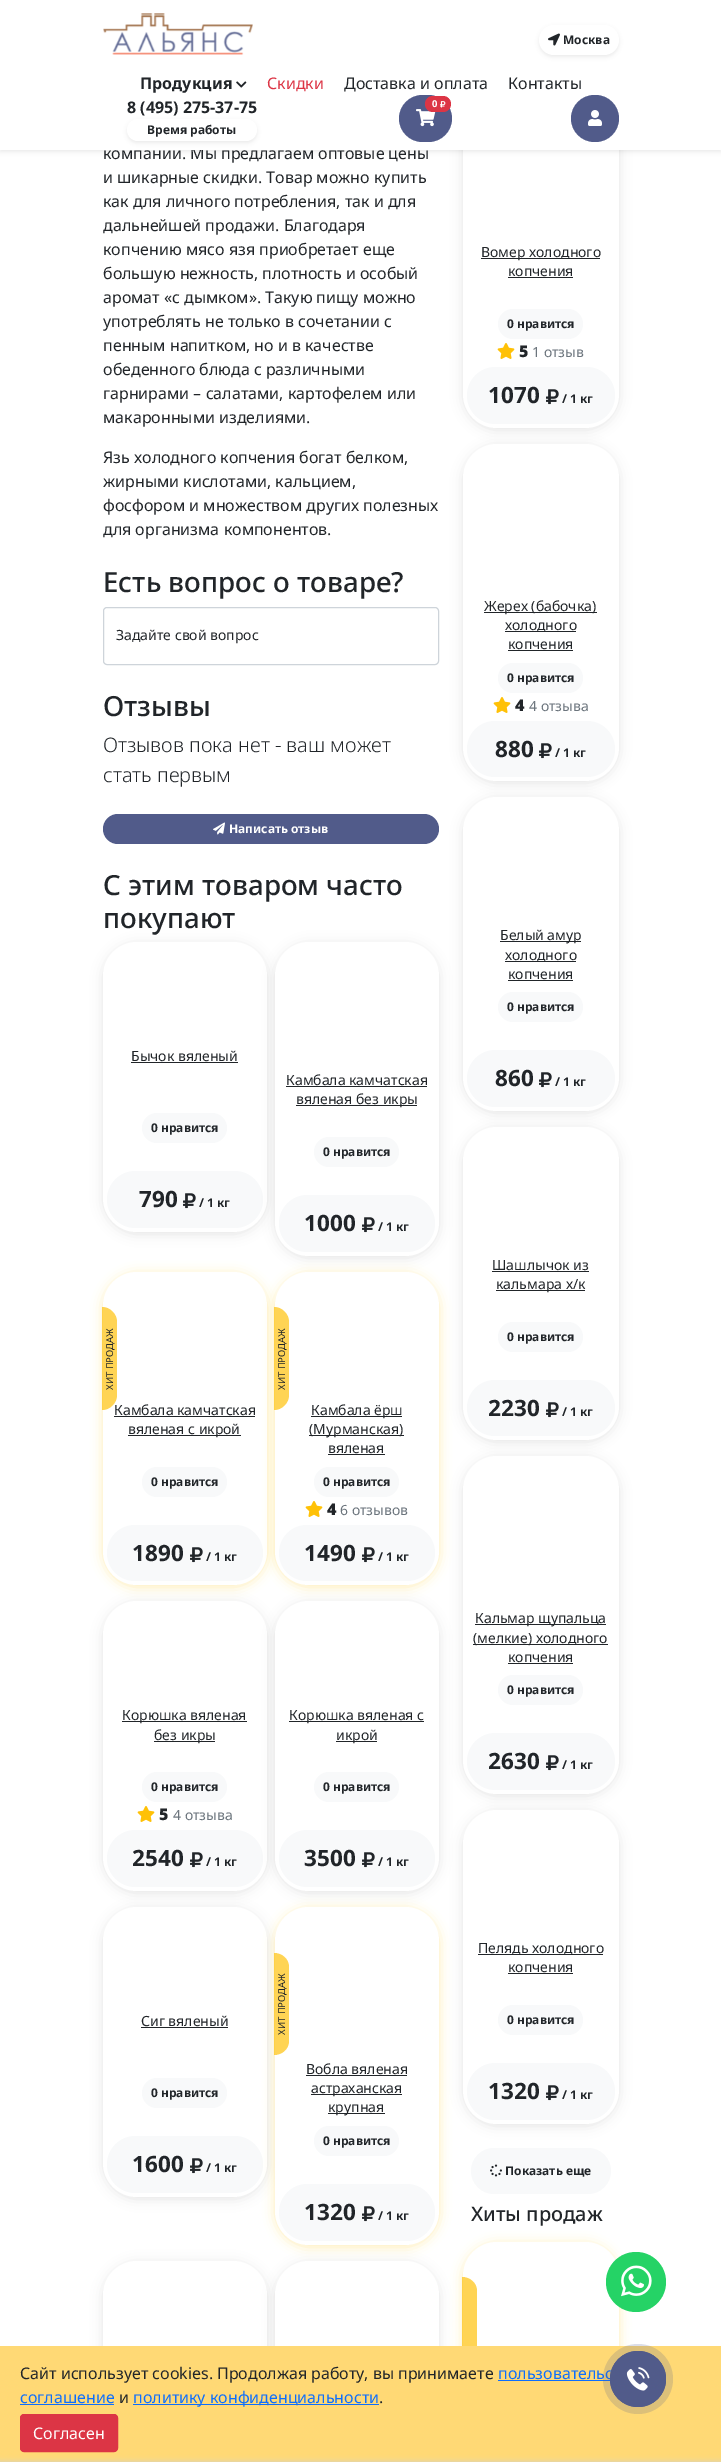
%!PS-Adobe-3.0
%%BoundingBox: 0 0 721 2462
%%LanguageLevel: 3
%%Pages: 1
%%EndComments
%%BeginProlog
/m { moveto } bind def
/l { lineto } bind def
/c { curveto } bind def
/h { closepath } bind def
/f { fill } bind def
/S { stroke } bind def
/q { gsave } bind def
/Q { grestore } bind def
/w { setlinewidth } bind def
/fn { [ exch dup neg 0 0 3 -1 roll 0 0 ] selectfont } def
/tx { moveto show } def
/bx { rectfill } def
/al { dup .setfillconstantalpha .setstrokeconstantalpha } def
/ci { newpath 0 360 arc closepath } def
/rr { 5 dict begin { /r /h /w /y /x } { exch def } forall
  x r add y moveto x w add y 2 copy h add r arct x w add y h add x 1 index r arct
  x y h add x y r arct x y 2 copy exch w add exch r arct closepath end } def
/sh { 12 dict begin { /a /b /q /h /w /y /x } { exch def } forall gsave /was 0 def
  9 -2 -9 { dup b mul 4 div /e exch def 1 sub .425 mul 2.718 exch exp 1 add a .99 .min exch div /now exch def
    1 1 now sub 1 was sub div sub al /was now def
    w h .min e 2 mul add 0 gt { x e sub y e sub w e 2 mul add h e 2 mul add
      q e add b .6 mul add w h .min 2 div e add .min 0 .max rr fill } if } for grestore end } def
/im { 5 dict begin { /h /w /y /x /name } { exch def } forall
  gsave x y translate w h scale
  w h 8 [w 0 0 h 0 0] name (r) file false 3 colorimage grestore end } def
%%EndProlog
%%BeginSetup
<< /PageSize [721 2462] /PageUsesTransparency true >> setpagedevice
%%EndSetup
%%Page: 1 1
0 .pushpdf14devicefilter
0 2462 translate 1 -1 scale
4 setmiterlimit
1 setgray
0 0 721 2462 bx
0.459 0.451 0.435 setrgbcolor
463 116 156 314 34 6 0.2 sh
1 setgray
463 114 156 314 34 rr f
0 setgray
0 2 721 150 0 2 0.07 sh
/NotoSans-Regular 16 fn
0.129 0.145 0.161 setrgbcolor
(компании. Мы предлагаем оптовые цены) 103 159 tx
1 setgray
0 0 721 150 bx
(image0.raw) 103 13 150 42 im
0 setgray
539 27 80 30 15 2 0.07 sh
1 setgray
539 25 80 30 15 rr f
(image1.raw) 548 33 12 13 im
/NotoSans-Bold 12 fn
0.129 0.145 0.161 setrgbcolor
(Москва) 563 44 tx
/NotoSans-Bold 16 fn
(Продукция) 140 89 tx
(image2.raw) 236 81 11 7 im
/NotoSans-Regular 16 fn
0.863 0.208 0.271 setrgbcolor
(Скидки) 267 89 tx
0.129 0.145 0.161 setrgbcolor
(Доставка и оплата) 344 89 tx
(Контакты) 508 89 tx
/NotoSans-Bold 16 fn
(8 \(495\) 275-37-75) 127 113 tx
0 setgray
127 121 130 22 11 2 0.07 sh
1 setgray
127 119 130 22 11 rr f
/NotoSans-Bold 12 fn
0.129 0.145 0.161 setrgbcolor
(Время работы) 147 134 tx
0.318 0.357 0.541 setrgbcolor
399 95 53 47 23.5 rr f
(image4.raw) 416 109 20 18 im
0.863 0.208 0.271 setrgbcolor
425 96 26 16 8 rr f
/NotoSans-Bold 9.5 fn
1 setgray
(0) 432 107 tx
(image3.raw) 440 101 6 7 im
0.318 0.357 0.541 setrgbcolor
571 95 48 47 23.5 rr f
(image5.raw) 588 110 14 16 im
/NotoSans-Regular 16 fn
0.129 0.145 0.161 setrgbcolor
(и шикарные скидки. Товар можно купить) 103 183 tx
(как для личного потребления, так и для) 103 207 tx
(дальнейшей продажи. Благодаря) 103 231 tx
(копчению мясо язя приобретает еще) 103 255 tx
(большую нежность, плотность и особый) 103 279 tx
(аромат «с дымком». Такую пищу можно) 103 303 tx
(употреблять не только в сочетании с) 103 327 tx
(пенным напитком, но и в качестве) 103 351 tx
(обеденного блюда с различными) 103 375 tx
(гарнирами – салатами, картофелем или) 103 399 tx
(макаронными изделиями.) 103 423 tx
(Язь холодного копчения богат белком,) 103 463 tx
(жирными кислотами, кальцием,) 103 487 tx
(фосфором и множеством других полезных) 103 511 tx
(для организма компонентов.) 103 535 tx
/NotoSans-Medium 27.75 fn
(Есть вопрос о товаре?) 103 592 tx
0.808 0.831 0.855 setrgbcolor
103.5 607.5 335 57 3.5 rr S
/NotoSans-Regular 14 fn
0.129 0.145 0.161 setrgbcolor
(Задайте свой вопрос) 116 640 tx
/NotoSans-Medium 27.75 fn
(Отзывы) 103 716 tx
/NotoSans-Light 20 fn
(Отзывов пока нет - ваш может) 103 752 tx
(стать первым) 103 782 tx
0.318 0.357 0.541 setrgbcolor
103 814 336 30 15 rr f
(image6.raw) 213 822 12 13 im
/NotoSans-Bold 12 fn
1 setgray
(Написать отзыв) 229 833 tx
/NotoSans-Medium 27.75 fn
0.129 0.145 0.161 setrgbcolor
(С этим товаром часто) 103 895 tx
(покупают) 103 928 tx
0.459 0.451 0.435 setrgbcolor
103 944 164 290 34 6 0.2 sh
1 setgray
103 942 164 290 34 rr f
/NotoSans-Regular 14 fn
0.129 0.145 0.161 setrgbcolor
(Бычок вяленый) 131 1061 tx
131 1062 107 1 bx
0.973 0.976 0.98 setrgbcolor
142 1113 85 30 15 rr f
/NotoSans-Bold 12 fn
0.129 0.145 0.161 setrgbcolor
(0 нравится) 151 1132 tx
0.973 0.976 0.98 setrgbcolor
107 1171 156 57 28.5 rr f
/NotoSans-Bold 22.5 fn
0.129 0.145 0.161 setrgbcolor
(790) 139 1207 tx
(image7.raw) 183 1193 13 16 im
/NotoSans-Bold 12 fn
(/ 1 кг) 199 1207 tx
0.459 0.451 0.435 setrgbcolor
275 944 164 314 34 6 0.2 sh
1 setgray
275 942 164 314 34 rr f
/NotoSans-Regular 14 fn
0.129 0.145 0.161 setrgbcolor
(Камбала камчатская) 286 1085 tx
286 1086 141 1 bx
296 1105 121 1 bx
(вяленая без икры) 296 1104 tx
0.973 0.976 0.98 setrgbcolor
314 1137 85 30 15 rr f
/NotoSans-Bold 12 fn
0.129 0.145 0.161 setrgbcolor
(0 нравится) 323 1156 tx
0.973 0.976 0.98 setrgbcolor
279 1195 156 57 28.5 rr f
/NotoSans-Bold 22.5 fn
0.129 0.145 0.161 setrgbcolor
(1000) 304 1231 tx
(image7.raw) 362 1217 13 16 im
/NotoSans-Bold 12 fn
(/ 1 кг) 378 1231 tx
1 0.757 0.027 setrgbcolor
103 1274 164 313 34 6 0.3 sh
1 setgray
103 1272 164 313 34 rr f
/NotoSans-Regular 14 fn
0.129 0.145 0.161 setrgbcolor
(Камбала камчатская) 114 1415 tx
0.69 al
1 0.757 0.027 setrgbcolor
102 1410 m 102 1307 l 110 1307 117 1314 117 1322 c 117 1395 l 117 1403 110 1410 102 1410 c h f
/NotoSans-Regular 9.5 fn
1 al
0.129 0.145 0.161 setrgbcolor
q 113 1390 translate -90 rotate 0 0 m (ХИТ ПРОДАЖ) show Q
114 1416 141 1 bx
128 1435 113 1 bx
/NotoSans-Regular 14 fn
(вяленая с икрой) 128 1434 tx
0.973 0.976 0.98 setrgbcolor
142 1467 85 30 15 rr f
/NotoSans-Bold 12 fn
0.129 0.145 0.161 setrgbcolor
(0 нравится) 151 1486 tx
0.973 0.976 0.98 setrgbcolor
107 1525 156 56 28 rr f
/NotoSans-Bold 22.5 fn
0.129 0.145 0.161 setrgbcolor
(1890) 132 1561 tx
(image7.raw) 190 1547 13 16 im
/NotoSans-Bold 12 fn
(/ 1 кг) 206 1561 tx
1 0.757 0.027 setrgbcolor
275 1274 164 313 34 6 0.3 sh
1 setgray
275 1272 164 313 34 rr f
0.69 al
1 0.757 0.027 setrgbcolor
274 1410 m 274 1307 l 282 1307 289 1314 289 1322 c 289 1395 l 289 1403 282 1410 274 1410 c h f
/NotoSans-Regular 9.5 fn
1 al
0.129 0.145 0.161 setrgbcolor
q 285 1390 translate -90 rotate 0 0 m (ХИТ ПРОДАЖ) show Q
311 1416 91 1 bx
/NotoSans-Regular 14 fn
(Камбала ёрш) 311 1415 tx
309 1435 95 1 bx
(\(Мурманская\)) 309 1434 tx
(вяленая) 328 1453 tx
328 1454 57 1 bx
0.973 0.976 0.98 setrgbcolor
314 1467 85 30 15 rr f
/NotoSans-Bold 12 fn
0.129 0.145 0.161 setrgbcolor
(0 нравится) 323 1486 tx
(image8.raw) 305 1501 18 16 im
/NotoSans-Black 16 fn
(4) 327 1515 tx
/NotoSans-Regular 14 fn
0.424 0.459 0.49 setrgbcolor
(6 отзывов) 340 1515 tx
0.973 0.976 0.98 setrgbcolor
279 1525 156 56 28 rr f
/NotoSans-Bold 22.5 fn
0.129 0.145 0.161 setrgbcolor
(1490) 304 1561 tx
(image7.raw) 362 1547 13 16 im
/NotoSans-Bold 12 fn
(/ 1 кг) 378 1561 tx
0.459 0.451 0.435 setrgbcolor
103 1603 164 290 34 6 0.2 sh
1 setgray
103 1601 164 290 34 rr f
0.129 0.145 0.161 setrgbcolor
122 1721 125 1 bx
/NotoSans-Regular 14 fn
(Корюшка вяленая) 122 1720 tx
154 1741 61 1 bx
(без икры) 154 1740 tx
0.973 0.976 0.98 setrgbcolor
142 1772 85 30 15 rr f
/NotoSans-Bold 12 fn
0.129 0.145 0.161 setrgbcolor
(0 нравится) 151 1791 tx
(image8.raw) 137 1806 18 16 im
/NotoSans-Black 16 fn
(5) 159 1820 tx
/NotoSans-Regular 14 fn
0.424 0.459 0.49 setrgbcolor
(4 отзыва) 173 1820 tx
0.973 0.976 0.98 setrgbcolor
107 1830 156 57 28.5 rr f
/NotoSans-Bold 22.5 fn
0.129 0.145 0.161 setrgbcolor
(2540) 132 1866 tx
(image7.raw) 190 1852 13 16 im
/NotoSans-Bold 12 fn
(/ 1 кг) 206 1866 tx
0.459 0.451 0.435 setrgbcolor
275 1603 164 290 34 6 0.2 sh
1 setgray
275 1601 164 290 34 rr f
0.129 0.145 0.161 setrgbcolor
289 1721 135 1 bx
/NotoSans-Regular 14 fn
(Корюшка вяленая с) 289 1720 tx
336 1741 41 1 bx
(икрой) 336 1740 tx
0.973 0.976 0.98 setrgbcolor
314 1772 85 30 15 rr f
/NotoSans-Bold 12 fn
0.129 0.145 0.161 setrgbcolor
(0 нравится) 323 1791 tx
0.973 0.976 0.98 setrgbcolor
279 1830 156 57 28.5 rr f
/NotoSans-Bold 22.5 fn
0.129 0.145 0.161 setrgbcolor
(3500) 304 1866 tx
(image7.raw) 362 1852 13 16 im
/NotoSans-Bold 12 fn
(/ 1 кг) 378 1866 tx
0.459 0.451 0.435 setrgbcolor
103 1909 164 290 34 6 0.2 sh
1 setgray
103 1907 164 290 34 rr f
/NotoSans-Regular 14 fn
0.129 0.145 0.161 setrgbcolor
(Сиг вяленый) 141 2026 tx
141 2027 87 1 bx
0.973 0.976 0.98 setrgbcolor
142 2078 85 30 15 rr f
/NotoSans-Bold 12 fn
0.129 0.145 0.161 setrgbcolor
(0 нравится) 151 2097 tx
0.973 0.976 0.98 setrgbcolor
107 2136 156 57 28.5 rr f
/NotoSans-Bold 22.5 fn
0.129 0.145 0.161 setrgbcolor
(1600) 132 2172 tx
(image7.raw) 190 2158 13 16 im
/NotoSans-Bold 12 fn
(/ 1 кг) 206 2172 tx
1 0.757 0.027 setrgbcolor
275 1909 164 338 34 6 0.3 sh
1 setgray
275 1907 164 338 34 rr f
0.69 al
1 0.757 0.027 setrgbcolor
274 2055 m 274 1953 l 282 1953 289 1959 289 1967 c 289 2041 l 289 2049 282 2055 274 2055 c h f
/NotoSans-Regular 9.5 fn
1 al
0.129 0.145 0.161 setrgbcolor
q 285 2035 translate -90 rotate 0 0 m (ХИТ ПРОДАЖ) show Q
/NotoSans-Regular 14 fn
(Вобла вяленая) 306 2074 tx
306 2075 101 1 bx
311 2094 91 1 bx
(астраханская) 311 2093 tx
328 2113 57 1 bx
(крупная) 328 2112 tx
0.973 0.976 0.98 setrgbcolor
314 2126 85 30 15 rr f
/NotoSans-Bold 12 fn
0.129 0.145 0.161 setrgbcolor
(0 нравится) 323 2145 tx
0.973 0.976 0.98 setrgbcolor
279 2184 156 57 28.5 rr f
/NotoSans-Bold 22.5 fn
0.129 0.145 0.161 setrgbcolor
(1320) 304 2220 tx
(image7.raw) 362 2206 13 16 im
/NotoSans-Bold 12 fn
(/ 1 кг) 378 2220 tx
0.459 0.451 0.435 setrgbcolor
103 2263 164 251 34 6 0.2 sh
1 setgray
103 2261 164 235 34 rr f
0.459 0.451 0.435 setrgbcolor
275 2263 164 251 34 6 0.2 sh
1 setgray
275 2261 164 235 34 rr f
0.129 0.145 0.161 setrgbcolor
481 258 119 1 bx
/NotoSans-Regular 14 fn
(Вомер холодного) 481 257 tx
(копчения) 508 276 tx
508 277 65 1 bx
0.973 0.976 0.98 setrgbcolor
498 309 85 30 15 rr f
/NotoSans-Bold 12 fn
0.129 0.145 0.161 setrgbcolor
(0 нравится) 507 328 tx
(image8.raw) 497 343 18 16 im
/NotoSans-Black 16 fn
(5) 519 357 tx
/NotoSans-Regular 14 fn
0.424 0.459 0.49 setrgbcolor
(1 отзыв) 532 357 tx
0.973 0.976 0.98 setrgbcolor
467 367 148 57 28.5 rr f
/NotoSans-Bold 22.5 fn
0.129 0.145 0.161 setrgbcolor
(1070) 488 403 tx
(image7.raw) 546 389 13 16 im
/NotoSans-Bold 12 fn
(/ 1 кг) 562 403 tx
0.459 0.451 0.435 setrgbcolor
463 446 156 337 34 6 0.2 sh
1 setgray
463 444 156 337 34 rr f
0.129 0.145 0.161 setrgbcolor
484 612 113 1 bx
/NotoSans-Regular 14 fn
(Жерех \(бабочка\)) 484 611 tx
505 631 71 1 bx
(холодного) 505 630 tx
(копчения) 508 649 tx
508 650 65 1 bx
0.973 0.976 0.98 setrgbcolor
498 663 85 30 15 rr f
/NotoSans-Bold 12 fn
0.129 0.145 0.161 setrgbcolor
(0 нравится) 507 682 tx
(image8.raw) 493 697 18 16 im
/NotoSans-Black 16 fn
(4) 515 711 tx
/NotoSans-Regular 14 fn
0.424 0.459 0.49 setrgbcolor
(4 отзыва) 529 711 tx
0.973 0.976 0.98 setrgbcolor
467 721 148 56 28 rr f
/NotoSans-Bold 22.5 fn
0.129 0.145 0.161 setrgbcolor
(880) 495 757 tx
(image7.raw) 539 743 13 16 im
/NotoSans-Bold 12 fn
(/ 1 кг) 555 757 tx
0.459 0.451 0.435 setrgbcolor
463 799 156 314 34 6 0.2 sh
1 setgray
463 797 156 314 34 rr f
0.129 0.145 0.161 setrgbcolor
500 941 81 1 bx
/NotoSans-Regular 14 fn
(Белый амур) 500 940 tx
505 961 71 1 bx
(холодного) 505 960 tx
(копчения) 508 979 tx
508 980 65 1 bx
0.973 0.976 0.98 setrgbcolor
498 992 85 30 15 rr f
/NotoSans-Bold 12 fn
0.129 0.145 0.161 setrgbcolor
(0 нравится) 507 1011 tx
0.973 0.976 0.98 setrgbcolor
467 1050 148 57 28.5 rr f
/NotoSans-Bold 22.5 fn
0.129 0.145 0.161 setrgbcolor
(860) 495 1086 tx
(image7.raw) 539 1072 13 16 im
/NotoSans-Bold 12 fn
(/ 1 кг) 555 1086 tx
0.459 0.451 0.435 setrgbcolor
463 1129 156 313 34 6 0.2 sh
1 setgray
463 1127 156 313 34 rr f
/NotoSans-Regular 14 fn
0.129 0.145 0.161 setrgbcolor
(Шашлычок из) 492 1270 tx
492 1271 97 1 bx
496 1290 89 1 bx
(кальмара х/к) 496 1289 tx
0.973 0.976 0.98 setrgbcolor
498 1322 85 30 15 rr f
/NotoSans-Bold 12 fn
0.129 0.145 0.161 setrgbcolor
(0 нравится) 507 1341 tx
0.973 0.976 0.98 setrgbcolor
467 1380 148 56 28 rr f
/NotoSans-Bold 22.5 fn
0.129 0.145 0.161 setrgbcolor
(2230) 488 1416 tx
(image7.raw) 546 1402 13 16 im
/NotoSans-Bold 12 fn
(/ 1 кг) 562 1416 tx
0.459 0.451 0.435 setrgbcolor
463 1458 156 338 34 6 0.2 sh
1 setgray
463 1456 156 338 34 rr f
0.129 0.145 0.161 setrgbcolor
475 1624 131 1 bx
/NotoSans-Regular 14 fn
(Кальмар щупальца) 475 1623 tx
473 1644 135 1 bx
(\(мелкие\) холодного) 473 1643 tx
(копчения) 508 1662 tx
508 1663 65 1 bx
0.973 0.976 0.98 setrgbcolor
498 1675 85 30 15 rr f
/NotoSans-Bold 12 fn
0.129 0.145 0.161 setrgbcolor
(0 нравится) 507 1694 tx
0.973 0.976 0.98 setrgbcolor
467 1733 148 57 28.5 rr f
/NotoSans-Bold 22.5 fn
0.129 0.145 0.161 setrgbcolor
(2630) 488 1769 tx
(image7.raw) 546 1755 13 16 im
/NotoSans-Bold 12 fn
(/ 1 кг) 562 1769 tx
0.459 0.451 0.435 setrgbcolor
463 1812 156 314 34 6 0.2 sh
1 setgray
463 1810 156 314 34 rr f
0.129 0.145 0.161 setrgbcolor
478 1954 125 1 bx
/NotoSans-Regular 14 fn
(Пелядь холодного) 478 1953 tx
(копчения) 508 1972 tx
508 1973 65 1 bx
0.973 0.976 0.98 setrgbcolor
498 2005 85 30 15 rr f
/NotoSans-Bold 12 fn
0.129 0.145 0.161 setrgbcolor
(0 нравится) 507 2024 tx
0.973 0.976 0.98 setrgbcolor
467 2063 148 57 28.5 rr f
/NotoSans-Bold 22.5 fn
0.129 0.145 0.161 setrgbcolor
(1320) 488 2099 tx
(image7.raw) 546 2085 13 16 im
/NotoSans-Bold 12 fn
(/ 1 кг) 562 2099 tx
0.973 0.976 0.98 setrgbcolor
471 2148 140 46 23 rr f
(image9.raw) 490 2164 12 13 im
0.129 0.145 0.161 setrgbcolor
(Показать еще) 505 2175 tx
/NotoSans-Medium 20 fn
(Хиты продаж) 471 2221 tx
1 0.757 0.027 setrgbcolor
463 2244 156 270 34 6 0.3 sh
1 setgray
463 2242 156 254 34 rr f
0.69 al
1 0.757 0.027 setrgbcolor
462 2380 m 462 2277 l 470 2277 477 2283 477 2291 c 477 2365 l 477 2373 470 2380 462 2380 c h f
1 al
0.145 0.827 0.4 setrgbcolor
636 2282 30 ci f
(image10.raw) 621 2265 31 32 im
1 0.851 0.459 setrgbcolor
0 2346 721 116 bx
/NotoSans-Regular 16 fn
0.129 0.145 0.161 setrgbcolor
(Сайт использует cookies. Продолжая работу, вы принимаете) 20 2379 tx
0.051 0.431 0.992 setrgbcolor
(пользовательс) 498 2379 tx
498 2380 113 1 bx
(соглашение) 20 2403 tx
20 2404 94 1 bx
0.129 0.145 0.161 setrgbcolor
(и) 119 2403 tx
0.051 0.431 0.992 setrgbcolor
133 2404 246 1 bx
(политику конфиденциальности) 133 2403 tx
0.129 0.145 0.161 setrgbcolor
(.) 379 2403 tx
0.863 0.208 0.271 setrgbcolor
20.5 2414.5 97 37 3.5 rr q f Q
S
1 setgray
(Согласен) 33 2439 tx
0.824 setgray
-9 2462 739 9 0 3 1 sh
0.2 al
0.318 0.357 0.541 setrgbcolor
638 2379 35 ci f
1 al
0.8 w
638 2379 27.6 ci S
638 2379 28 ci f
(image11.raw) 626 2367 24 24 im
.poppdf14devicefilter showpage
%%EOF
